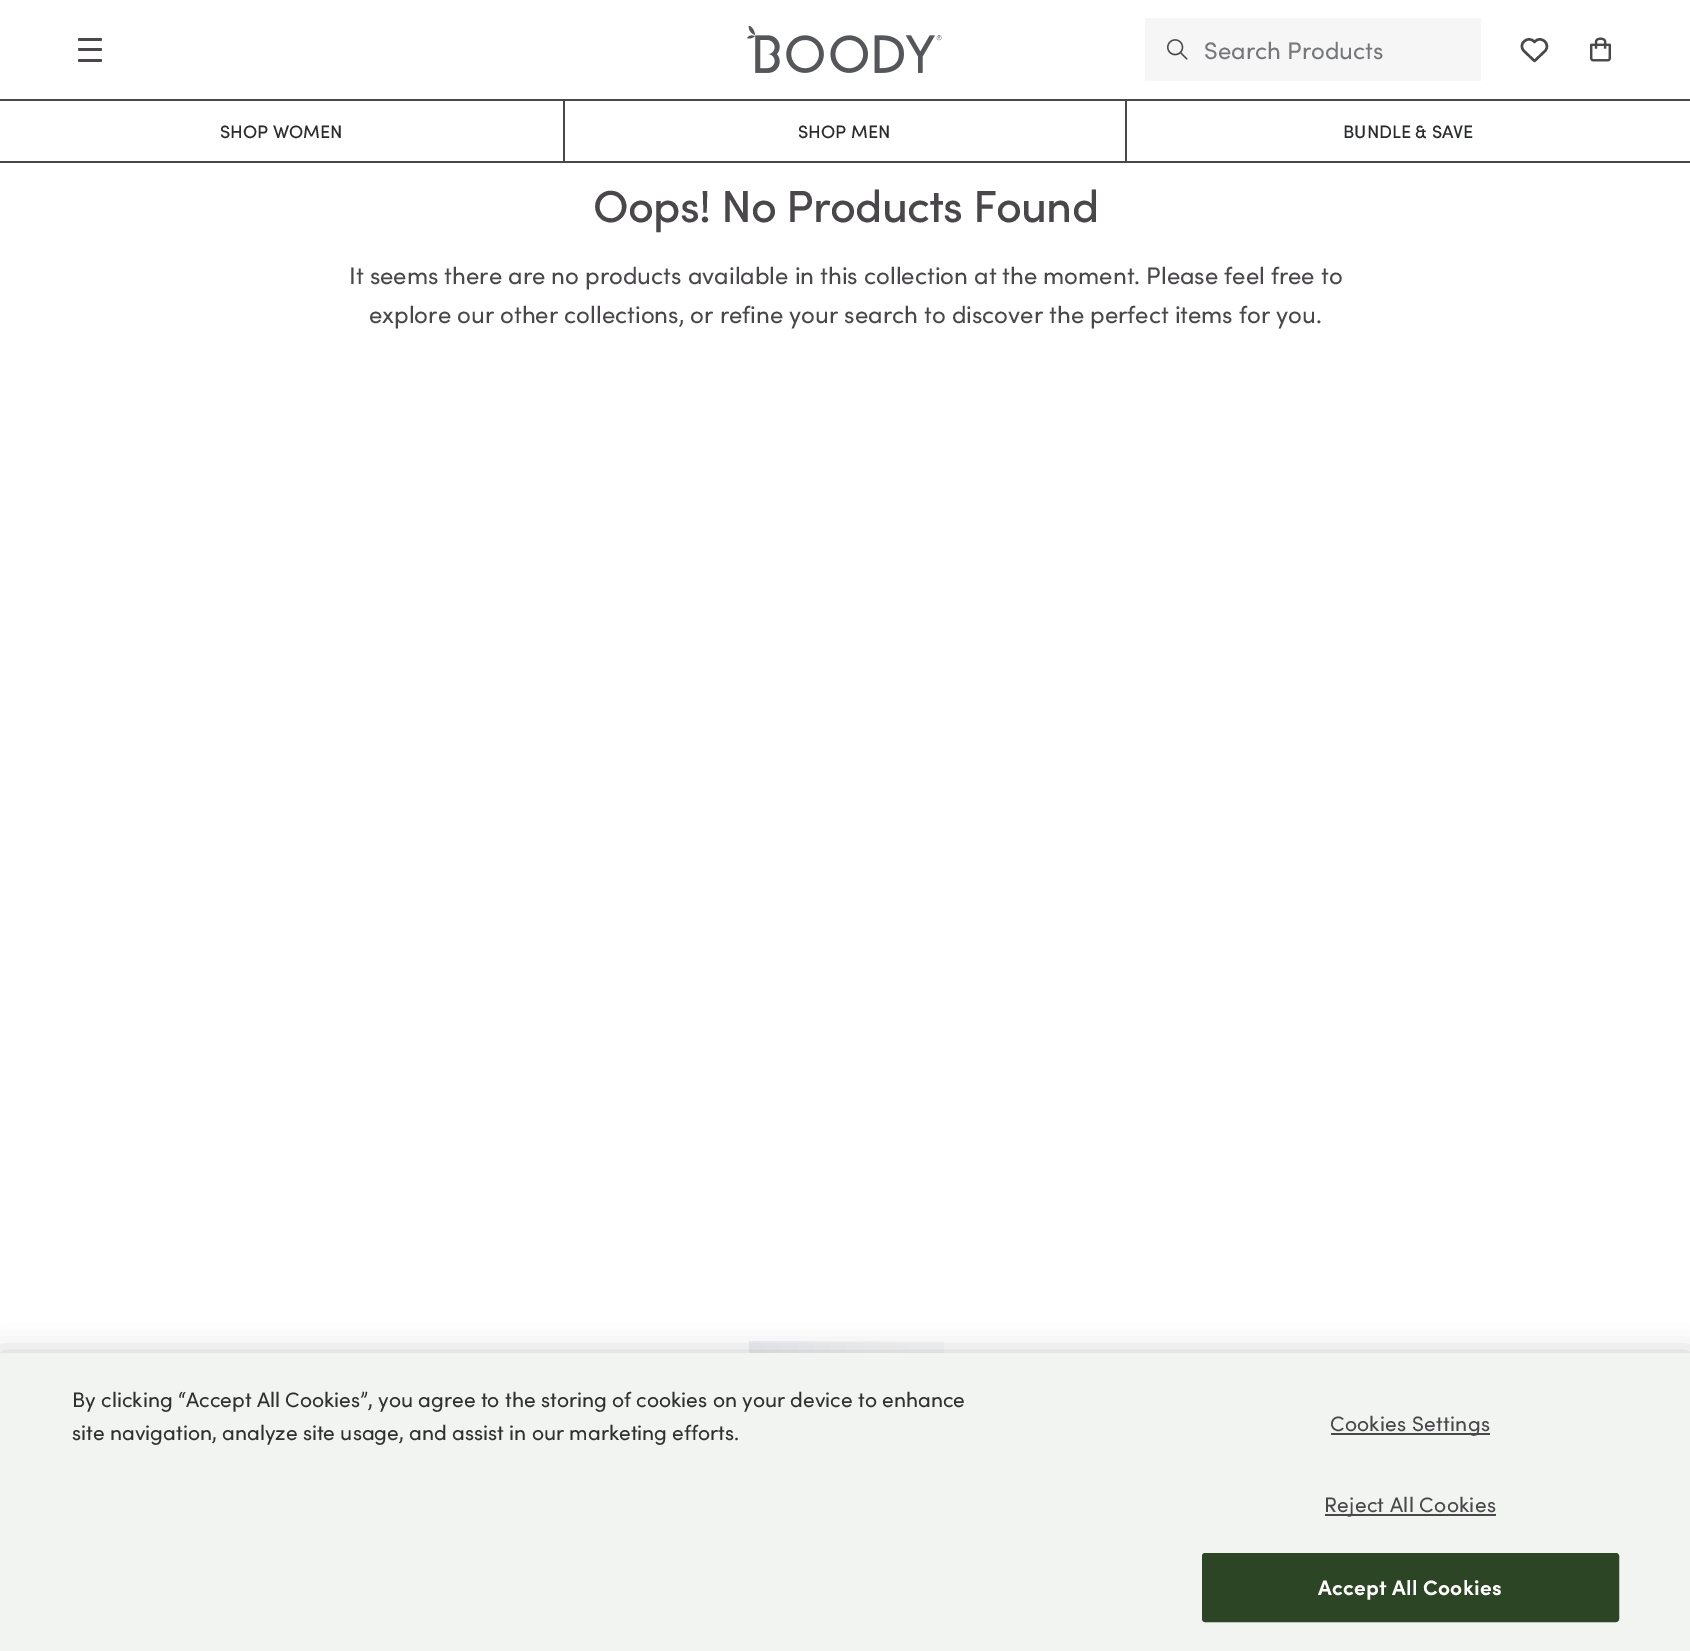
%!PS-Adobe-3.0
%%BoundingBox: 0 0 1690 1651
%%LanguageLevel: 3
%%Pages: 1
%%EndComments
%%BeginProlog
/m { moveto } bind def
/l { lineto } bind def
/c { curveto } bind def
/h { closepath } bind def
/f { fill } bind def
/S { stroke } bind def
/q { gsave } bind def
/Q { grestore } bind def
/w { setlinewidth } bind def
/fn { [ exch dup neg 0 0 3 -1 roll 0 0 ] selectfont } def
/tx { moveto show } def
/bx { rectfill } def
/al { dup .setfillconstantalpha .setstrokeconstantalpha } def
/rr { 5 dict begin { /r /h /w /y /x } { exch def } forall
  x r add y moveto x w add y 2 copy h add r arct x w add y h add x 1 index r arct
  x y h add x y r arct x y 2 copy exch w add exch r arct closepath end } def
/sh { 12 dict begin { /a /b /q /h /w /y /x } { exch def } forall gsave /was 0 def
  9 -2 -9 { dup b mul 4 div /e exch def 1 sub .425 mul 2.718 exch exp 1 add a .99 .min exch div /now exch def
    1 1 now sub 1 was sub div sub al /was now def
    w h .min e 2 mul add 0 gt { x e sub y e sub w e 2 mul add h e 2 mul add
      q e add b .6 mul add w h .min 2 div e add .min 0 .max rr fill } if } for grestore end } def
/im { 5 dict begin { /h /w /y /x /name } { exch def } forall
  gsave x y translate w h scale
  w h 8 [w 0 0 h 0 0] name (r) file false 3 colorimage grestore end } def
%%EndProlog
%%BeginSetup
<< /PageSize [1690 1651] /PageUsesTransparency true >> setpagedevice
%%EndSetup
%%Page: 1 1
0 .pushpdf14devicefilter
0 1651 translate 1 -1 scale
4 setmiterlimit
1 setgray
0 0 1690 1651 bx
0.29 0.278 0.29 setrgbcolor
78 38 24 3 1.5 rr f
78 48 24 3 1.5 rr f
78 59 24 3 1.5 rr f
(image0.raw) 747 26 195 47 im
0.965 setgray
1145 18 336 63 bx
(image1.raw) 1167 39 21 21 im
/Sofia-Regular 24 fn
0.463 0.467 0.478 setrgbcolor
(Search Products) 1204 59 tx
0.29 0.278 0.29 setrgbcolor
2.4 w
1 setlinecap
1 setlinejoin
1545 51 m 1534.5 61 l 1524 51 l 1524 51 m 1517 44 1528.5 34.5 1534.5 42 c 1540.5 34.5 1551.5 44 1545 51 c S
(image2.raw) 1590 37 21 25 im
0 99 1690 2 bx
0 161 1690 2 bx
563 101 2 60 bx
/Sofia-Medium 18 fn
0.165 0.169 0.176 setrgbcolor
(SHOP WOMEN) 220 138 tx
0.29 0.278 0.29 setrgbcolor
1125 101 2 60 bx
0.165 0.169 0.176 setrgbcolor
(SHOP MEN) 798 138 tx
(BUNDLE & SAVE) 1343 138 tx
/Sofia-Medium 45 fn
0.29 0.278 0.29 setrgbcolor
593 222 m -0.75 0 (Oops! No Products Found) ashow
/Sofia-Regular 24 fn
(It seems there are no products available in this collection at the moment. Please feel free to) 349 284 tx
(explore our other collections, or refine your search to discover the perfect items for you.) 369 323 tx
q 749 1341 m 944 1341 l 944 1353 l 749 1353 l h clip newpath
<< /ShadingType 2 /ColorSpace /DeviceRGB /Coords [944 1365 593 1365] /Extend [true true] /Function << /FunctionType 3 /Domain [0 1] /Functions [<< /FunctionType 2 /Domain [0 1] /C0 [0.976 0.98 0.984] /C1 [0.976 0.98 0.984] /N 1 >> << /FunctionType 2 /Domain [0 1] /C0 [0.976 0.98 0.984] /C1 [0.898 0.906 0.922] /N 1 >>] /Bounds [0.1] /Encode [0 1 0 1] >> >> shfill Q
0 setgray
0 1353 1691 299 0 13.5 0.2 sh
0.949 0.957 0.949 setrgbcolor
0 1353 1690 298 bx
/Sofia-Regular 21 fn
0.188 setgray
(By clicking “Accept All Cookies”, you agree to the storing of cookies on your device to enhance) 72 1407 tx
(site navigation, analyze site usage, and assist in our marketing efforts.) 72 1440 tx
0.29 0.278 0.29 setrgbcolor
1331 1433 159 2 bx
1330 1431 m 0.25 0 (Cookies Settings) ashow
1325 1514 171 2 bx
1324 1512 m 0.25 0 (Reject All Cookies) ashow
0.173 0.271 0.145 setrgbcolor
1203 1554 415 67 2 rr q f Q
2 w
0 setlinecap
0 setlinejoin
S
/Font-Bold 21 fn
1 setgray
1318 1595 m 0.25 0 (Accept All Cookies) ashow
.poppdf14devicefilter showpage
%%EOF
